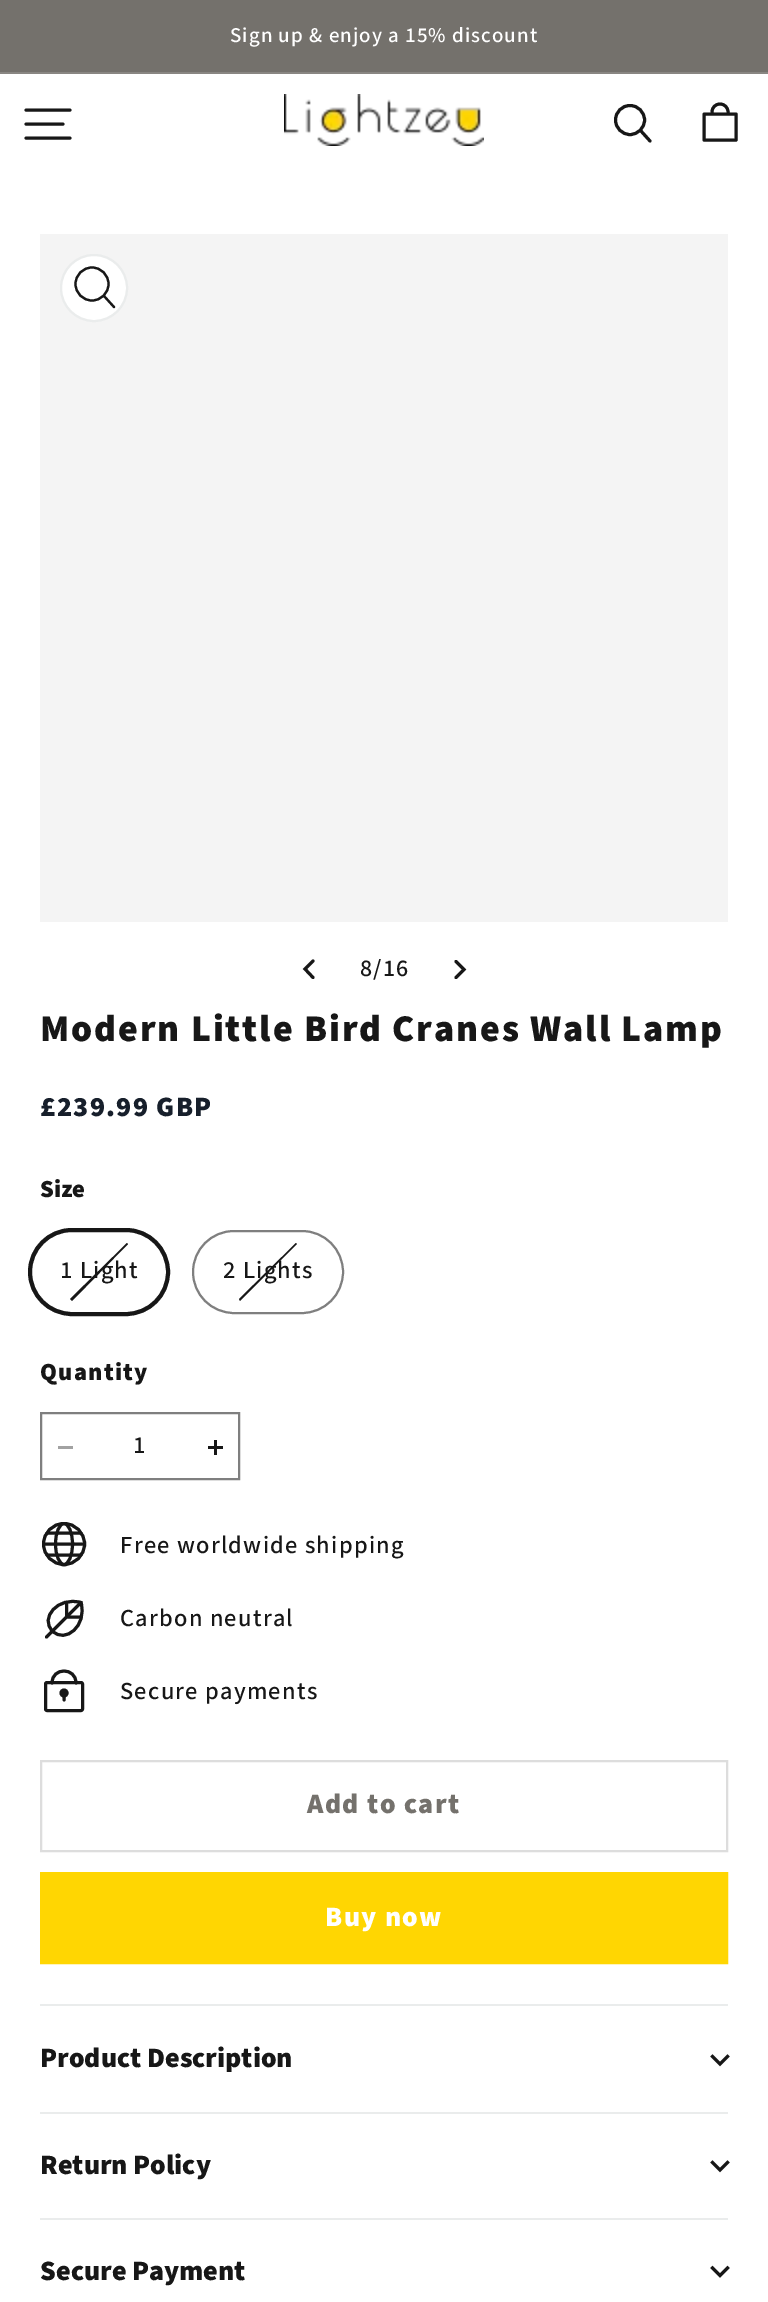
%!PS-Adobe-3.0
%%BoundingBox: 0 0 768 2302
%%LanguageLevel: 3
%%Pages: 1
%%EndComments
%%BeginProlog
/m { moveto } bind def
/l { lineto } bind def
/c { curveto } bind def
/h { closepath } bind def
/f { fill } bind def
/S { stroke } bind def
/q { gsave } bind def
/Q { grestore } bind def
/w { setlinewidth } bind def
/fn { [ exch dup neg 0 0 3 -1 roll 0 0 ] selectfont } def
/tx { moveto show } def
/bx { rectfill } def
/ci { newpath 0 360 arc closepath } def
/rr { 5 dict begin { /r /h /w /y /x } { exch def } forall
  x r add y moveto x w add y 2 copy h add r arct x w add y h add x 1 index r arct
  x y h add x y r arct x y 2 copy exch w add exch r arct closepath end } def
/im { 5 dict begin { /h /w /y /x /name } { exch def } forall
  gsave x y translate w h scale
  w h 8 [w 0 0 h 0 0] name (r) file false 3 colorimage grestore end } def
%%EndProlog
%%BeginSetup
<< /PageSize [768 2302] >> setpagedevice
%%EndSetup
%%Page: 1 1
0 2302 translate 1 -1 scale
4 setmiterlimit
1 setgray
0 0 768 2302 bx
0.455 0.443 0.424 setrgbcolor
0 0 768 72 bx
/Mada-Medium 21 fn
1 setgray
230 42 m 1.05 0 (Sign up & enjoy a 15% discount) ashow
0.537 0.525 0.51 setrgbcolor
0 72 768 2 bx
0.09 setgray
3 w
1 setlinecap
26 110 m 70 110 l 26 124 m 63 124 l 26 138 m 70 138 l S
(image0.raw) 284 94 200 52 im
0 setlinecap
630 120 14.5 ci S
1 setlinecap
641 131 m 650 141 l S
1 setlinejoin
704 140 m 704 114 l 736 114 l 736 140 l h 712 114 m 712 112 l 712 107.5 715.5 104 720 104 c 724.5 104 728 107.5 728 112 c 728 114 l S
0.957 setgray
40 234 688 688 bx
1 setgray
94 288 33 ci q f Q
0.918 0.925 0.925 setrgbcolor
2 w
0 setlinecap
0 setlinejoin
S
0.09 setgray
2.2 w
92 284 16.5 ci S
1 setlinecap
104 296 m 114 307 l S
3 w
313 961 m 305 969 l 313 977.5 l S
/Mada-Medium 24 fn
360 976 m 1.05 0 (8/16) ashow
456 977.5 m 464 969.5 l 456 961.5 l S
/Mada-Black 37.75 fn
40 1041 m 1.9 0 (Modern Little Bird Cranes Wall Lamp) ashow
/Mada-Black 28 fn
0.09 0.122 0.169 setrgbcolor
40 1116 m 1.4 0 (£239.99 GBP) ashow
/Mada-Black 24.5 fn
0.09 setgray
(Size) 40 1197 tx
70 1299 m 127 1243 l 128 1244 l 72 1301 l h f
4 w
0 setlinecap
30 1230 138 84 42 rr S
/Mada-Medium 24.5 fn
60 1278 m 1.25 0 (1 Light) ashow
239 1299 m 296 1243 l 297 1244 l 240 1301 l h f
0.498 setgray
2 w
193 1231 150 82 41 rr S
0.09 setgray
223 1278 m 1.25 0 (2 Lights) ashow
/Mada-Black 24.5 fn
40 1380 m 1.25 0 (Quantity) ashow
0.635 setgray
58 1446 15 3 bx
0.09 setgray
214 1440 3 15 bx
208 1446 15 3 bx
0.498 setgray
41 1413 198 66 rectstroke
/Mada-Medium 24.5 fn
0.09 setgray
133 1453 m 1.25 0 (1) ashow
3 w
64 1544 20.5 ci S
64 1523.5 m 68.5 1523.5 72.5 1532.5 72.5 1544 c 72.5 1555.5 68.5 1564.5 64 1564.5 c 59.5 1564.5 55.5 1555.5 55.5 1544 c 55.5 1532.5 59.5 1523.5 64 1523.5 c h S
1 setlinecap
47 1533 m 81 1533 l 43.5 1544 m 84.5 1544 l 47 1555 m 81 1555 l S
120 1553 m 1.25 0 (Free worldwide shipping) ashow
0 setlinecap
52.5 1631 m 39.5 1618.5 57.5 1596 81 1602.5 c 87.5 1626 65 1644 52.5 1631 c h S
1 setlinecap
1 setlinejoin
46.5 1637 m 81 1602.5 l 66.5 1602.5 m 66.5 1617 l 81 1617 l S
120 1626 m 1.25 0 (Carbon neutral) ashow
0 setlinecap
0 setlinejoin
45.5 1682.5 37 28 1.5 rr S
1 setlinecap
76 1683 m 76 1667 52 1667 52 1683 c S
64 1693 3.5 ci q f Q
2 w
0 setlinecap
S
3 w
1 setlinecap
64 1693 m 64 1700 l S
120 1699 m 1.25 0 (Secure payments) ashow
0.867 setgray
2 w
0 setlinecap
41 1761 686 90 rectstroke
/Mada-Black 28 fn
0.455 0.443 0.424 setrgbcolor
307 1813 m 1.4 0 (Add to cart) ashow
1 0.839 0.008 setrgbcolor
42 1874 684 88 bx
41 1873 686 90 rectstroke
1 setgray
325 1926 m 1.4 0 (Buy now) ashow
0.918 0.925 0.925 setrgbcolor
40 2004 688 2 bx
0.09 setgray
(Product Description) 40 2067 tx
3.1 w
2 setlinecap
720 2064 m 727.5 2056.5 l 720 2064 m 712.5 2056.5 l S
0.918 0.925 0.925 setrgbcolor
40 2112 688 2 bx
0.09 setgray
(Return Policy) 40 2174 tx
720 2170 m 727.5 2162.5 l 720 2170 m 712.5 2162.5 l S
0.918 0.925 0.925 setrgbcolor
40 2218 688 2 bx
0.09 setgray
(Secure Payment) 40 2280 tx
720 2275.5 m 727.5 2268 l 720 2275.5 m 712.5 2268 l S
showpage
%%EOF
